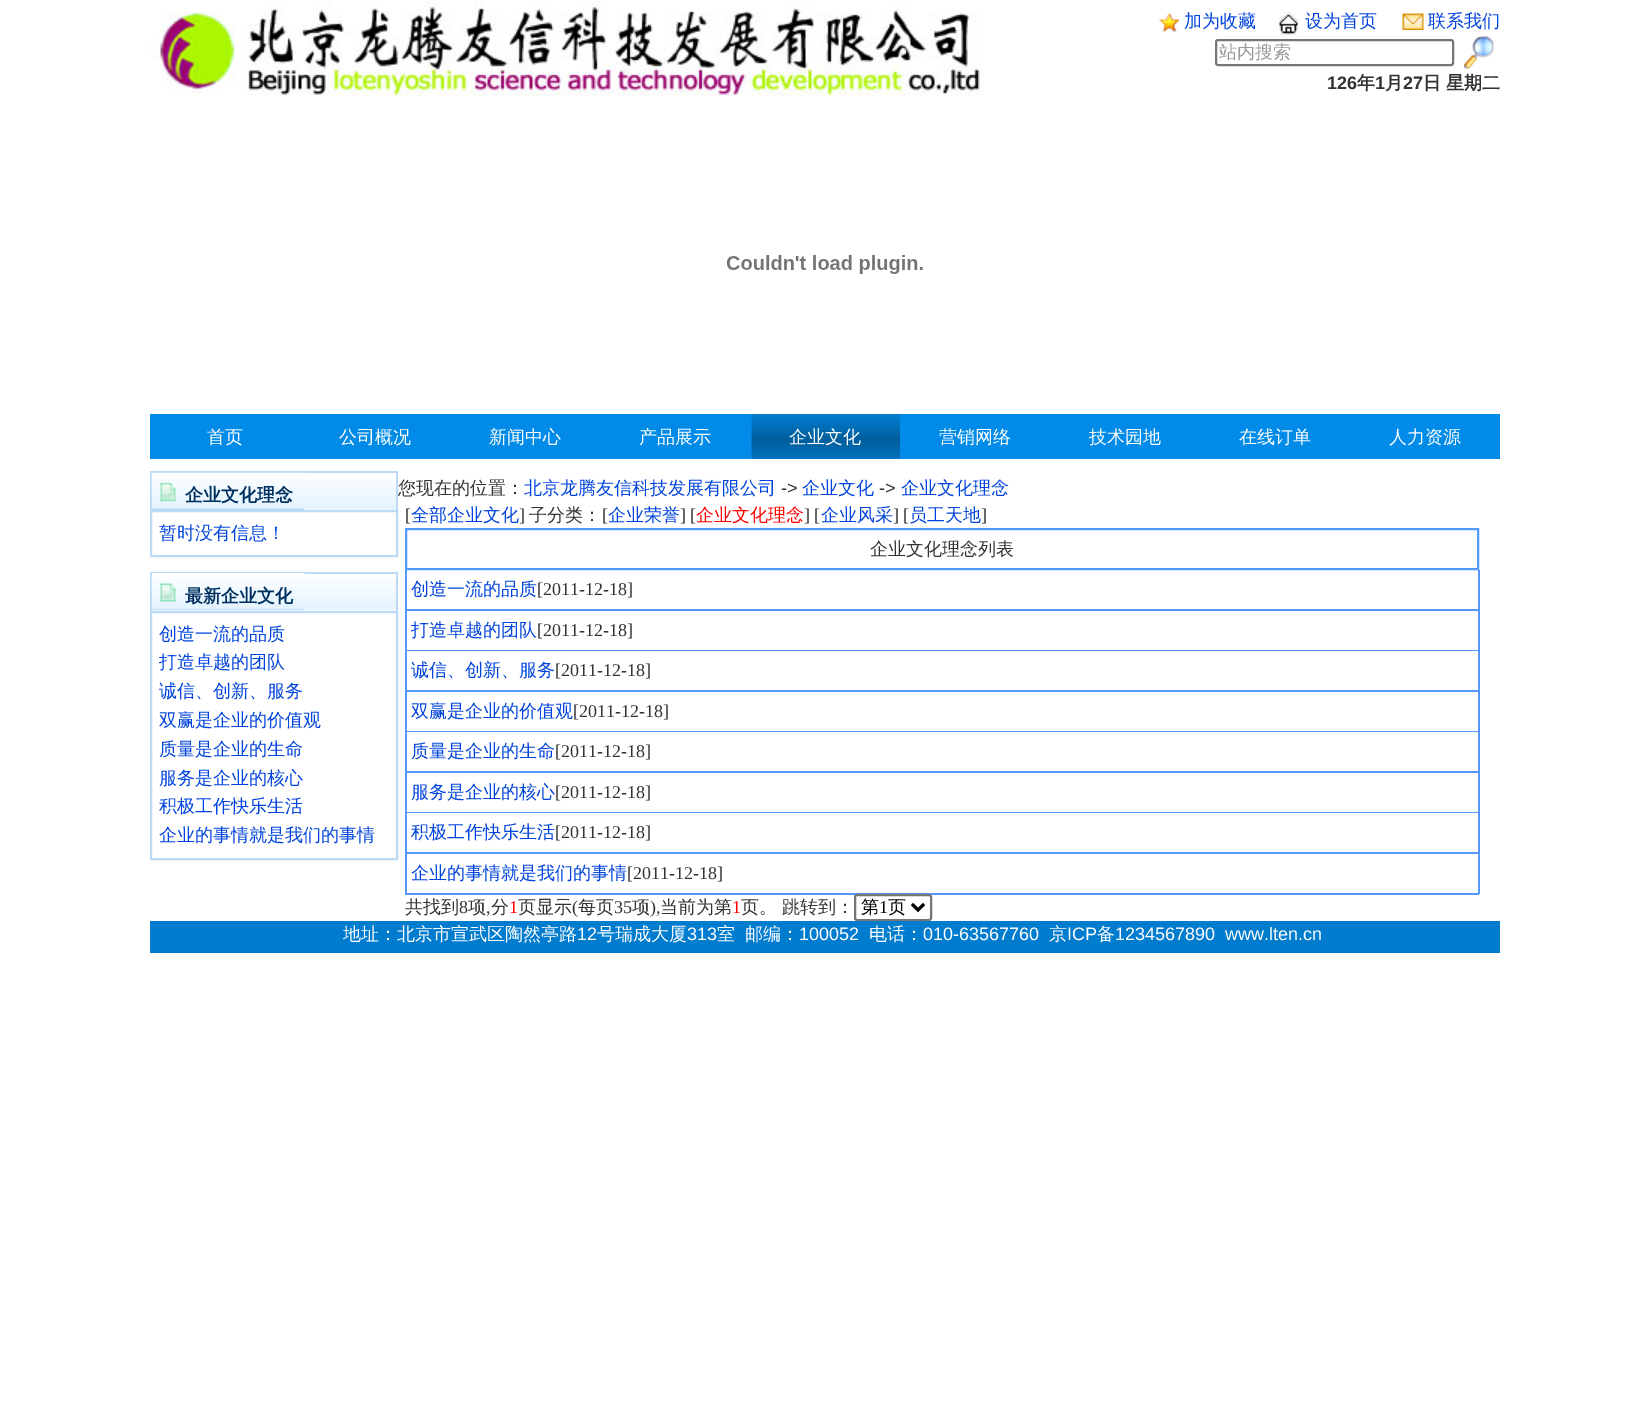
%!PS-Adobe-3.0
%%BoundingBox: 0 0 1650 1427
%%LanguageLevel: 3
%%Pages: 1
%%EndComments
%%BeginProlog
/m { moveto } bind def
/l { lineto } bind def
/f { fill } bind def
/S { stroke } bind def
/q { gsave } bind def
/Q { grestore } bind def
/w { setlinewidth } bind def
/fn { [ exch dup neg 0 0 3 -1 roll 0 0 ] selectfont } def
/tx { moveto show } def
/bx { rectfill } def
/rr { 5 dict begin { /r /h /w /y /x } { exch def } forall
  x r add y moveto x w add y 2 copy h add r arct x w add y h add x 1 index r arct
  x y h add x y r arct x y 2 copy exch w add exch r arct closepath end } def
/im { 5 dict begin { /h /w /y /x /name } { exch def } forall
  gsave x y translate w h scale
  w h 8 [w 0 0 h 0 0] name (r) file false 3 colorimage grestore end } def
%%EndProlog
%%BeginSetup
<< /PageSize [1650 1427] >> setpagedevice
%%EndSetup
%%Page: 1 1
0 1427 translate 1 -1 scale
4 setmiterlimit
1 setgray
0 0 1650 1427 bx
(image0.raw) 150 0 834 97 im
(image1.raw) 1159 13 20 19 im
/WenQuanYiZenHei-Medium 18 fn
0 0.267 0.867 setrgbcolor
(加为收藏) 1184 27 tx
(image2.raw) 1279 12 19 23 im
(设为首页) 1305 27 tx
(image3.raw) 1402 13 22 17 im
(联系我们) 1428 27 tx
0.463 setgray
2 w
1216 40 237 25 2 rr S
0.6 setgray
(站内搜索) 1219 58 tx
(image4.raw) 1464 36 30 33 im
/LiberationSans-Bold 18 fn
0.2 setgray
(126) 1327 89 tx
/WenQuanYiZenHei-Bold 18 fn
(年) 1357 89 tx
/LiberationSans-Bold 18 fn
(1) 1375 89 tx
/WenQuanYiZenHei-Bold 18 fn
(月) 1385 89 tx
/LiberationSans-Bold 18 fn
(27) 1403 89 tx
/WenQuanYiZenHei-Bold 18 fn
(日 星期二) 1423 89 tx
(image5.raw) 726 255 197 19 im
0 0.545 0.91 setrgbcolor
150 414 1350 45 bx
/WenQuanYiZenHei-Medium 18 fn
1 setgray
(首页) 207 443 tx
(公司概况) 339 443 tx
(新闻中心) 489 443 tx
(产品展示) 639 443 tx
(image6.raw) 751 414 149 45 im
(企业文化) 789 443 tx
(营销网络) 939 443 tx
(技术园地) 1089 443 tx
(在线订单) 1239 443 tx
(人力资源) 1389 443 tx
(image7.raw) 304 473 92 37 im
0.737 0.851 0.961 setrgbcolor
150 471 248 2 bx
0.2 setgray
(您现在的位置：) 398 494 tx
0.737 0.851 0.961 setrgbcolor
396 471 2 39 bx
150 471 2 39 bx
(image8.raw) 151 472 154 38 im
/WenQuanYiZenHei-Bold 18 fn
0 0.188 0.376 setrgbcolor
(企业文化理念) 185 501 tx
0.737 0.851 0.961 setrgbcolor
151 511 246 45 rectstroke
/WenQuanYiZenHei-Medium 18 fn
0 0.267 0.867 setrgbcolor
(暂时没有信息！) 159 539 tx
(image9.raw) 150 571 248 40 im
0.737 0.851 0.961 setrgbcolor
150 572 248 2 bx
396 572 2 39 bx
150 572 2 39 bx
(image10.raw) 151 573 154 38 im
/WenQuanYiZenHei-Bold 18 fn
0 0.188 0.376 setrgbcolor
(最新企业文化) 185 602 tx
0.737 0.851 0.961 setrgbcolor
151 612 246 247 rectstroke
/WenQuanYiZenHei-Medium 18 fn
0 0.267 0.867 setrgbcolor
(创造一流的品质) 159 640 tx
(打造卓越的团队) 159 668 tx
(诚信、创新、服务) 159 697 tx
(双赢是企业的价值观) 159 726 tx
(质量是企业的生命) 159 755 tx
(服务是企业的核心) 159 784 tx
(积极工作快乐生活) 159 812 tx
(企业的事情就是我们的事情) 159 841 tx
(北京龙腾友信科技发展有限公司) 524 494 tx
/LiberationSans-Regular 18 fn
0.2 setgray
(->) 781 494 tx
/WenQuanYiZenHei-Medium 18 fn
0 0.267 0.867 setrgbcolor
(企业文化) 802 494 tx
/LiberationSans-Regular 18 fn
0.2 setgray
(->) 879 494 tx
/WenQuanYiZenHei-Medium 18 fn
0 0.267 0.867 setrgbcolor
(企业文化理念) 901 494 tx
/LiberationSerif-Regular 18 fn
0.2 setgray
([) 405 521 tx
/WenQuanYiZenHei-Medium 18 fn
0 0.267 0.867 setrgbcolor
(全部企业文化) 411 521 tx
/LiberationSerif-Regular 18 fn
0.2 setgray
(]) 519 521 tx
/WenQuanYiZenHei-Medium 18 fn
(子分类：) 529 521 tx
/LiberationSerif-Regular 18 fn
([) 602 521 tx
/WenQuanYiZenHei-Medium 18 fn
0 0.267 0.867 setrgbcolor
(企业荣誉) 608 521 tx
/LiberationSerif-Regular 18 fn
0.2 setgray
(] [) 680 521 tx
/WenQuanYiZenHei-Medium 18 fn
1 0 0 setrgbcolor
(企业文化理念) 696 521 tx
/LiberationSerif-Regular 18 fn
0.2 setgray
(] [) 804 521 tx
/WenQuanYiZenHei-Medium 18 fn
0 0.267 0.867 setrgbcolor
(企业风采) 821 521 tx
/LiberationSerif-Regular 18 fn
0.2 setgray
(] [) 893 521 tx
/WenQuanYiZenHei-Medium 18 fn
0 0.267 0.867 setrgbcolor
(员工天地) 909 521 tx
/LiberationSerif-Regular 18 fn
0.2 setgray
(]) 981 521 tx
0.333 0.6 1 setrgbcolor
406 529 1072 40 rectstroke
/WenQuanYiZenHei-Medium 18 fn
0.2 setgray
(企业文化理念列表) 870 555 tx
0.333 0.6 1 setrgbcolor
1478 570 2 324 bx
405 609 1074 2 bx
405 570 2 41 bx
0 0.267 0.867 setrgbcolor
(创造一流的品质) 411 595 tx
/LiberationSerif-Regular 18 fn
0.2 setgray
([2011-12-18]) 537 595 tx
0.333 0.6 1 setrgbcolor
405 650 1074 1 bx
405 611 2 40 bx
/WenQuanYiZenHei-Medium 18 fn
0 0.267 0.867 setrgbcolor
(打造卓越的团队) 411 636 tx
/LiberationSerif-Regular 18 fn
0.2 setgray
([2011-12-18]) 537 636 tx
0.333 0.6 1 setrgbcolor
405 690 1074 2 bx
405 651 2 41 bx
/WenQuanYiZenHei-Medium 18 fn
0 0.267 0.867 setrgbcolor
(诚信、创新、服务) 411 676 tx
/LiberationSerif-Regular 18 fn
0.2 setgray
([2011-12-18]) 555 676 tx
0.333 0.6 1 setrgbcolor
405 731 1074 1 bx
405 692 2 40 bx
/WenQuanYiZenHei-Medium 18 fn
0 0.267 0.867 setrgbcolor
(双赢是企业的价值观) 411 717 tx
/LiberationSerif-Regular 18 fn
0.2 setgray
([2011-12-18]) 573 717 tx
0.333 0.6 1 setrgbcolor
405 771 1074 2 bx
405 732 2 41 bx
/WenQuanYiZenHei-Medium 18 fn
0 0.267 0.867 setrgbcolor
(质量是企业的生命) 411 757 tx
/LiberationSerif-Regular 18 fn
0.2 setgray
([2011-12-18]) 555 757 tx
0.333 0.6 1 setrgbcolor
405 812 1074 1 bx
405 773 2 40 bx
/WenQuanYiZenHei-Medium 18 fn
0 0.267 0.867 setrgbcolor
(服务是企业的核心) 411 798 tx
/LiberationSerif-Regular 18 fn
0.2 setgray
([2011-12-18]) 555 798 tx
0.333 0.6 1 setrgbcolor
405 852 1074 2 bx
405 813 2 41 bx
/WenQuanYiZenHei-Medium 18 fn
0 0.267 0.867 setrgbcolor
(积极工作快乐生活) 411 838 tx
/LiberationSerif-Regular 18 fn
0.2 setgray
([2011-12-18]) 555 838 tx
0.333 0.6 1 setrgbcolor
405 893 1074 2 bx
405 854 2 40 bx
/WenQuanYiZenHei-Medium 18 fn
0 0.267 0.867 setrgbcolor
(企业的事情就是我们的事情) 411 879 tx
/LiberationSerif-Regular 18 fn
0.2 setgray
([2011-12-18]) 627 879 tx
/WenQuanYiZenHei-Medium 18 fn
(共找到) 405 913 tx
/LiberationSerif-Regular 18 fn
(8) 459 913 tx
/WenQuanYiZenHei-Medium 18 fn
(项) 468 913 tx
(分) 491 913 tx
/LiberationSerif-Regular 18 fn
1 0 0 setrgbcolor
(1) 509 913 tx
/WenQuanYiZenHei-Medium 18 fn
0.2 setgray
(页显示) 518 913 tx
/LiberationSerif-Regular 18 fn
(\() 572 913 tx
/WenQuanYiZenHei-Medium 18 fn
(每页) 578 913 tx
/LiberationSerif-Regular 18 fn
(35) 614 913 tx
/WenQuanYiZenHei-Medium 18 fn
(项) 632 913 tx
/LiberationSerif-Regular 18 fn
(\),) 650 913 tx
/WenQuanYiZenHei-Medium 18 fn
(当前为第) 660 913 tx
/LiberationSerif-Regular 18 fn
1 0 0 setrgbcolor
(1) 732 913 tx
/WenQuanYiZenHei-Medium 18 fn
0.2 setgray
(页。) 741 913 tx
(跳转到：) 782 913 tx
1 setgray
855 895 76 25 2 rr q f Q
0.463 setgray
S
0 setgray
3 w
912 904 m 918 910 l 924 904 l S
(第) 861 913 tx
/LiberationSerif-Regular 18 fn
(1) 879 913 tx
/WenQuanYiZenHei-Medium 18 fn
(页) 888 913 tx
/LiberationSerif-Regular 18 fn
0.2 setgray
(,) 486 913 tx
0 0.486 0.812 setrgbcolor
150 921 1350 32 bx
/WenQuanYiZenHei-Medium 18 fn
1 setgray
(地址：北京市宣武区陶然亭路) 343 940 tx
/LiberationSans-Regular 18 fn
(12) 577 940 tx
/WenQuanYiZenHei-Medium 18 fn
(号瑞成大厦) 597 940 tx
/LiberationSans-Regular 18 fn
(313) 687 940 tx
/WenQuanYiZenHei-Medium 18 fn
(室) 717 940 tx
(邮编：) 745 940 tx
/LiberationSans-Regular 18 fn
(100052) 799 940 tx
/WenQuanYiZenHei-Medium 18 fn
(电话：) 869 940 tx
/LiberationSans-Regular 18 fn
(010-63567760) 923 940 tx
/WenQuanYiZenHei-Medium 18 fn
(京) 1049 940 tx
/LiberationSans-Regular 18 fn
(ICP) 1067 940 tx
/WenQuanYiZenHei-Medium 18 fn
(备) 1097 940 tx
/LiberationSans-Regular 18 fn
(1234567890  www.lten.cn) 1115 940 tx
showpage
%%EOF
